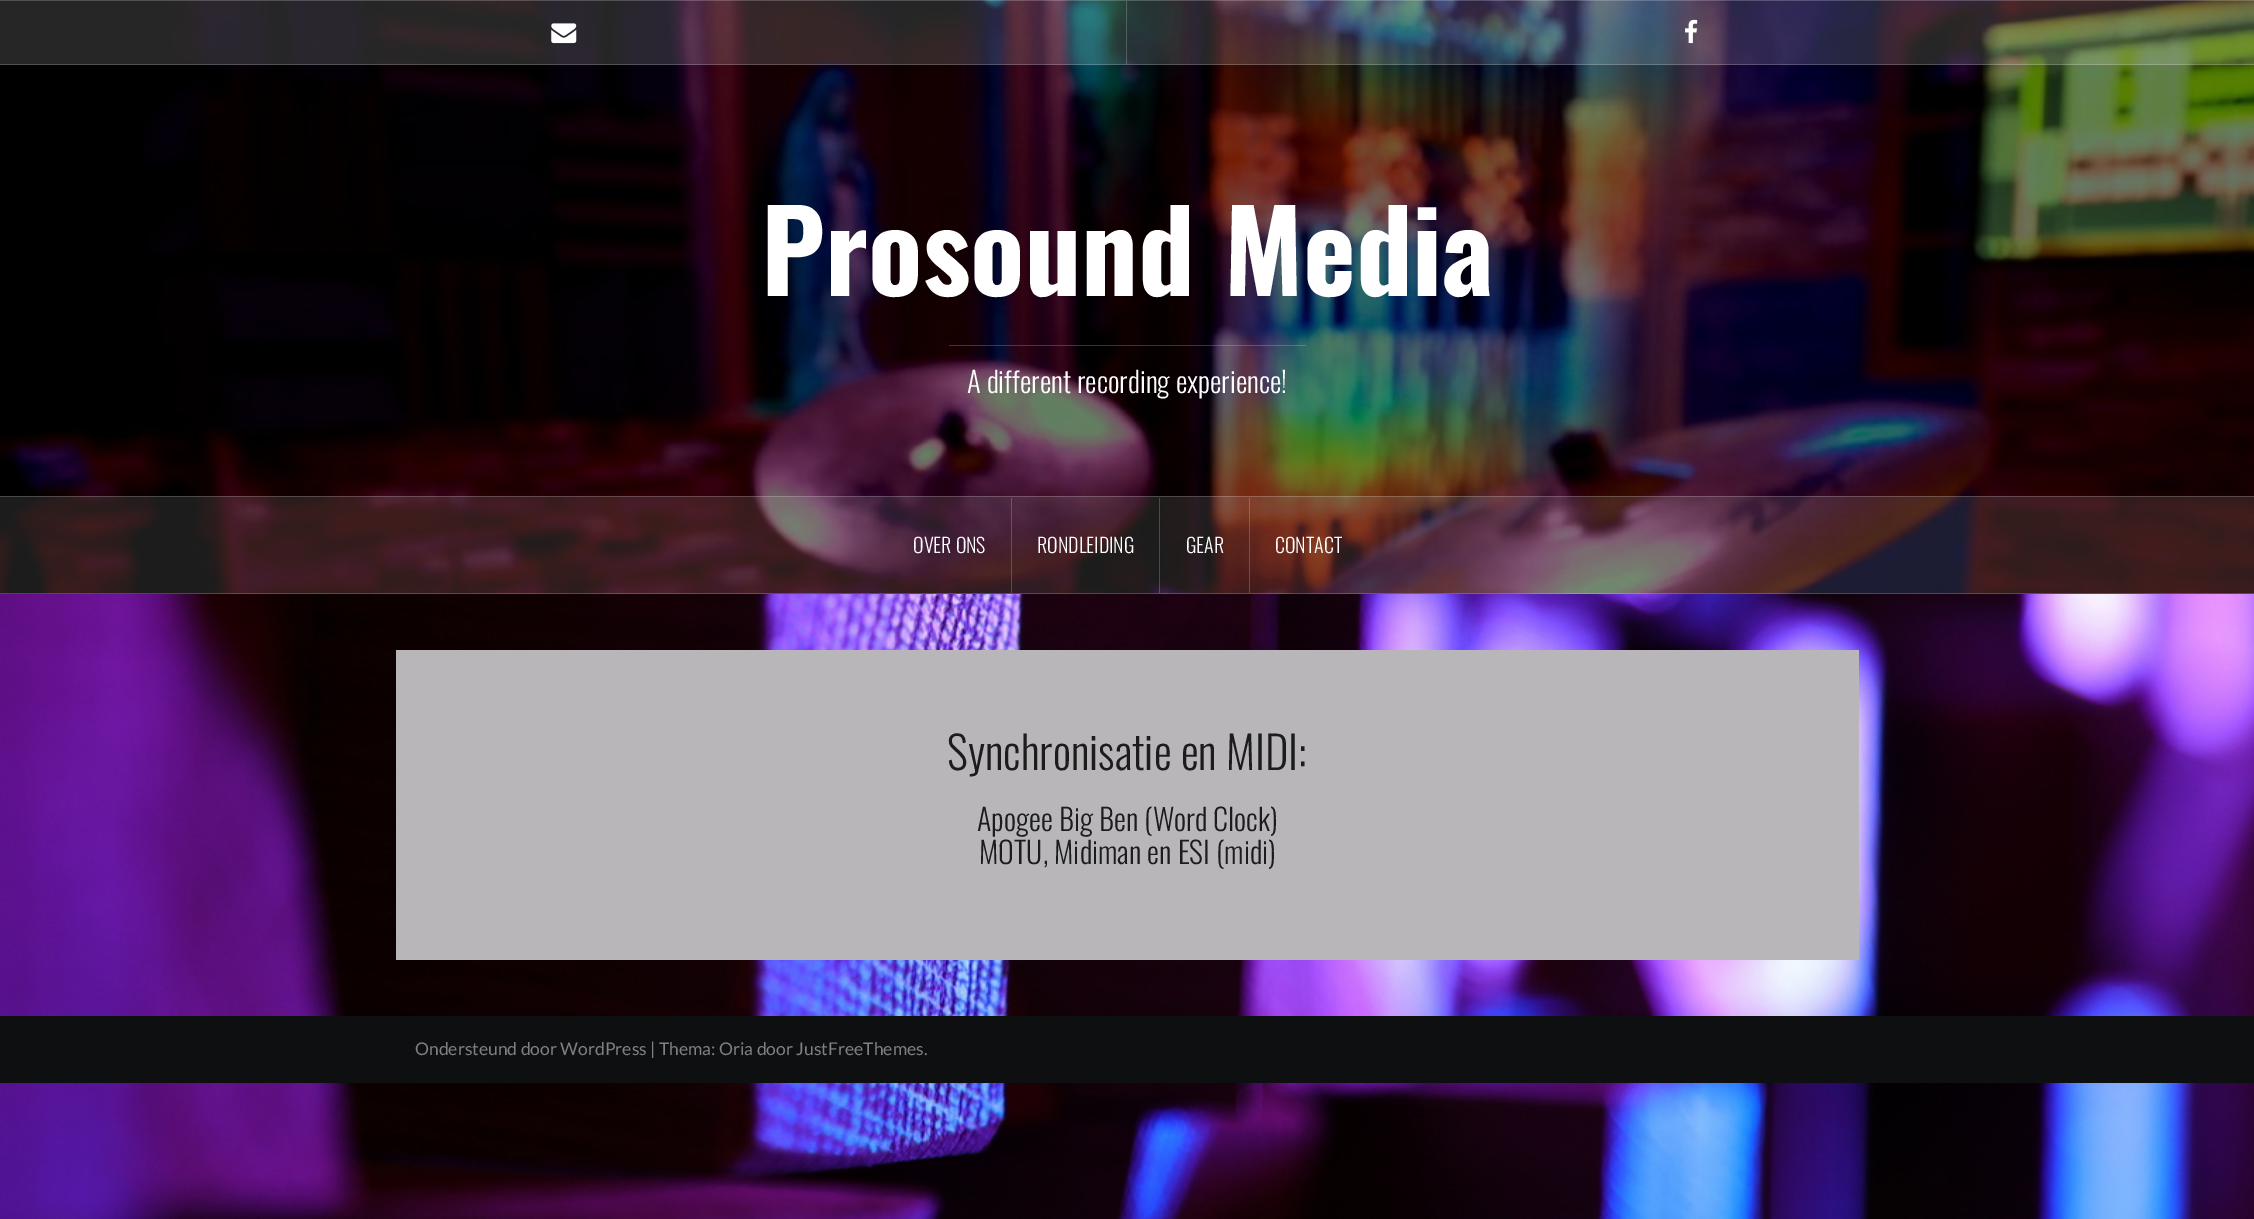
%!PS-Adobe-3.0
%%BoundingBox: 0 0 2254 1219
%%LanguageLevel: 3
%%Pages: 1
%%EndComments
%%BeginProlog
/fn { [ exch dup neg 0 0 3 -1 roll 0 0 ] selectfont } def
/tx { moveto show } def
/bx { rectfill } def
/al { dup .setfillconstantalpha .setstrokeconstantalpha } def
/im { 5 dict begin { /h /w /y /x /name } { exch def } forall
  gsave x y translate w h scale
  w h 8 [w 0 0 h 0 0] name (r) file false 3 colorimage grestore end } def
%%EndProlog
%%BeginSetup
<< /PageSize [2254 1219] /PageUsesTransparency true >> setpagedevice
%%EndSetup
%%Page: 1 1
0 .pushpdf14devicefilter
0 1219 translate 1 -1 scale
4 setmiterlimit
1 setgray
0 0 2254 1219 bx
(image0.raw) 0 594 2254 625 im
(image1.raw) 0 0 2254 594 im
0.15 al
0 0 2254 65 bx
0.2 al
0 0 2254 1 bx
0 64 2254 1 bx
1126 1 1 63 bx
1 al
(image2.raw) 551 23 26 21 im
(image3.raw) 1685 19 13 25 im
/Oswald-Bold 112.5 fn
(Prosound Media) 761 296 tx
0.2 al
949 345 357 1 bx
/Oswald-Light 28.75 fn
1 al
(A different recording experience!) 967 393 tx
0.15 al
0.729 setgray
0 496 2254 98 bx
0.2 al
1 setgray
0 496 2254 1 bx
0 593 2254 1 bx
1011 498 1 95 bx
/Oswald-Light 20 fn
1 al
(OVER ONS) 913 553 tx
0.2 al
1159 498 1 95 bx
1 al
(RONDLEIDING) 1037 553 tx
0.2 al
1249 498 1 95 bx
1 al
(GEAR) 1186 553 tx
(CONTACT) 1275 553 tx
0.725 0.714 0.729 setrgbcolor
396 650 1463 310 bx
/Oswald-Light 45 fn
0.11 setgray
(Synchronisatie en MIDI:) 947 770 tx
/Oswald-Light 30 fn
(Apogee Big Ben \(Word Clock\)) 977 831 tx
(MOTU, Midiman en ESI \(midi\)) 979 864 tx
0.051 0.059 0.063 setrgbcolor
0 1016 2254 67 bx
/Lato-Regular 17.5 fn
0.502 setgray
(Ondersteund door WordPress | Thema: Oria door JustFreeThemes.) 415 1055 tx
.poppdf14devicefilter showpage
%%EOF
